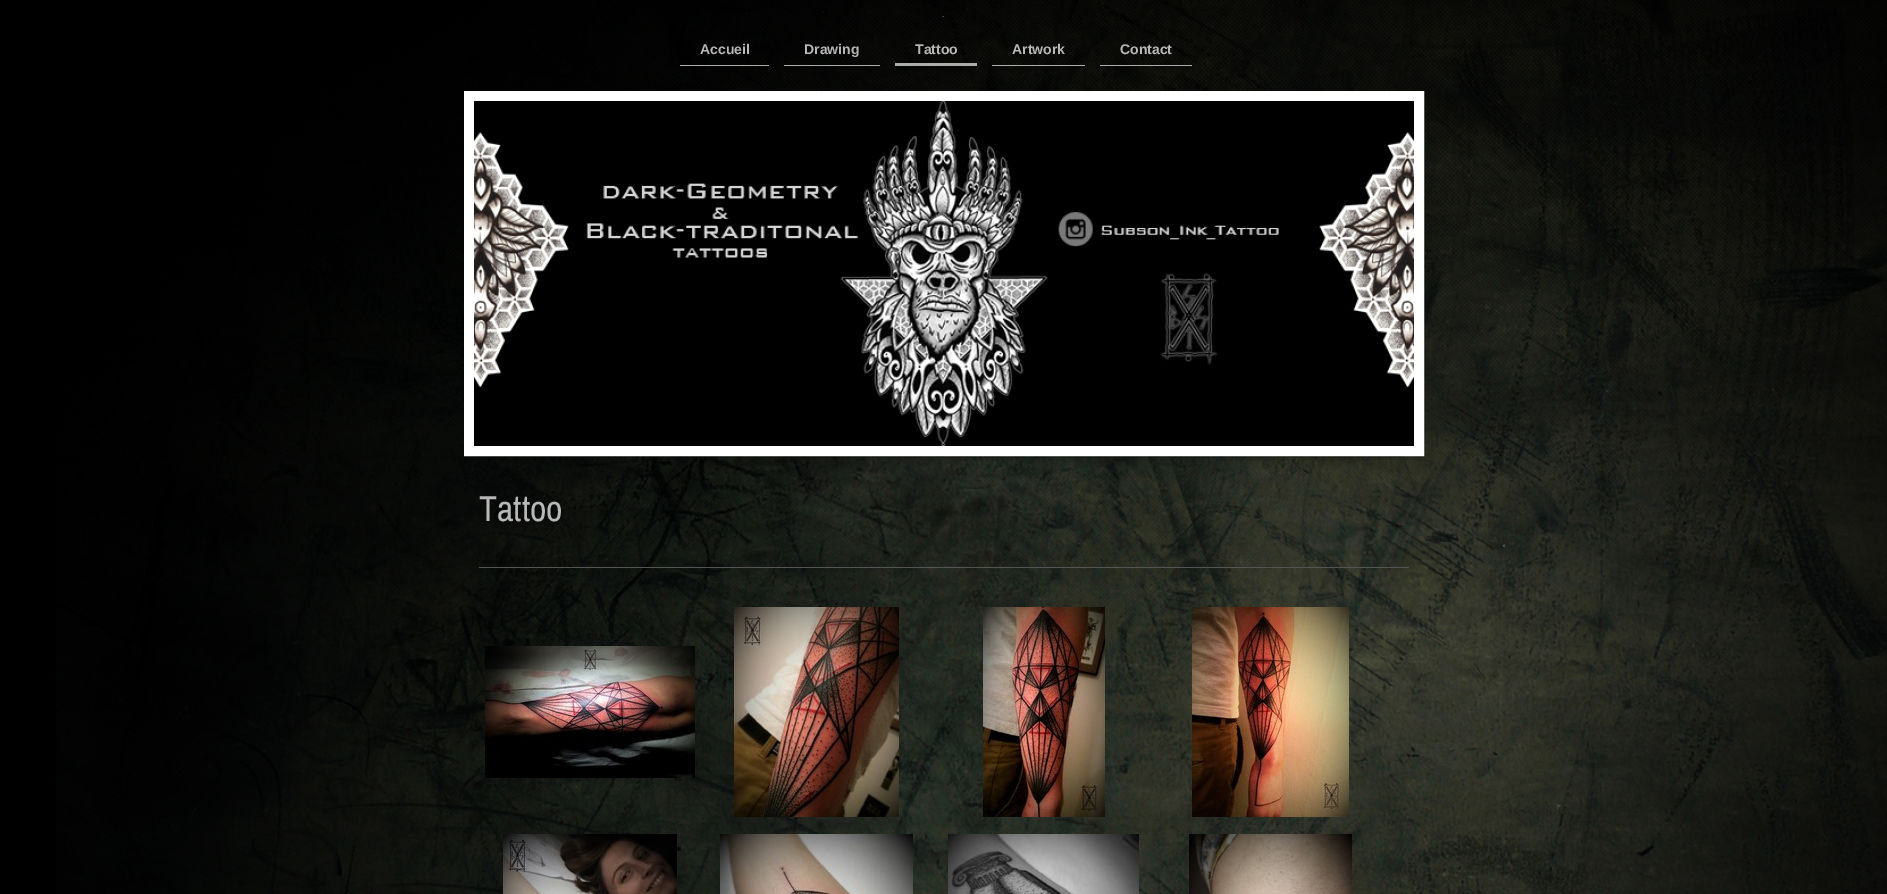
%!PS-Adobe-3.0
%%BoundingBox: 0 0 1887 894
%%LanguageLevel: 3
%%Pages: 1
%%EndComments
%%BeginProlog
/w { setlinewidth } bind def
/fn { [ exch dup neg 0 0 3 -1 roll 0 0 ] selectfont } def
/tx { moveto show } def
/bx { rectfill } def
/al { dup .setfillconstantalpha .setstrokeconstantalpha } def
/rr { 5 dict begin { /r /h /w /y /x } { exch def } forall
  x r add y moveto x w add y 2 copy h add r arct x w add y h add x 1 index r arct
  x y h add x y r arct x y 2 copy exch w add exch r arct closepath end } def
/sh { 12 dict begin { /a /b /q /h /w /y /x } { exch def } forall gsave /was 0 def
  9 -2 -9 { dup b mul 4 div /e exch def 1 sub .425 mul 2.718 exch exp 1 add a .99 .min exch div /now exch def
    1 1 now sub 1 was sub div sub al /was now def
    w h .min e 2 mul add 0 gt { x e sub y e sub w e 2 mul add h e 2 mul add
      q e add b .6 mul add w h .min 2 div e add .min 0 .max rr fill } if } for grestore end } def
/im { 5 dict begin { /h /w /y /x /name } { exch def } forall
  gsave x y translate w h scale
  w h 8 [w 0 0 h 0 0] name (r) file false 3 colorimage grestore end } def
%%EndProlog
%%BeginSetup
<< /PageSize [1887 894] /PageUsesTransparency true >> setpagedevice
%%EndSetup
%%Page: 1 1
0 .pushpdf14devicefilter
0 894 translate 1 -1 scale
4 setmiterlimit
0 setgray
0 0 1887 894 bx
(image0.raw) 56 0 1831 894 im
/LiberationSans-Regular 8 fn
0.722 setgray
(.) 942 17 tx
/LiberationSans-Bold 14 fn
(Accueil) 700 54 tx
0.675 setgray
680 65 89 1 bx
0.722 setgray
(Drawing) 804 54 tx
0.675 setgray
784 65 96 1 bx
0.722 setgray
(Tattoo) 915 54 tx
0.675 setgray
895 63 82 3 bx
0.722 setgray
(Artwork) 1012 54 tx
0.675 setgray
992 65 93 1 bx
0.722 setgray
(Contact) 1120 54 tx
0.675 setgray
1100 65 92 1 bx
0 setgray
464 93 960 365 0 1.5 0.3 sh
484 131 920 325 0 1 1 sh
1 setgray
10 w
469 96 950 355 rectstroke
(image1.raw) 474 101 940 345 im
/ArchivoNarrow-Regular 36 fn
0.722 setgray
(Tattoo) 479 521 tx
0.329 setgray
479 567 930 1 bx
(image2.raw) 485 646 210 132 im
(image3.raw) 734 607 165 210 im
(image4.raw) 983 607 122 210 im
(image5.raw) 1192 607 157 210 im
(image6.raw) 503 834 174 60 im
(image7.raw) 720 834 193 60 im
(image8.raw) 948 834 191 60 im
(image9.raw) 1189 834 163 60 im
.poppdf14devicefilter showpage
%%EOF
